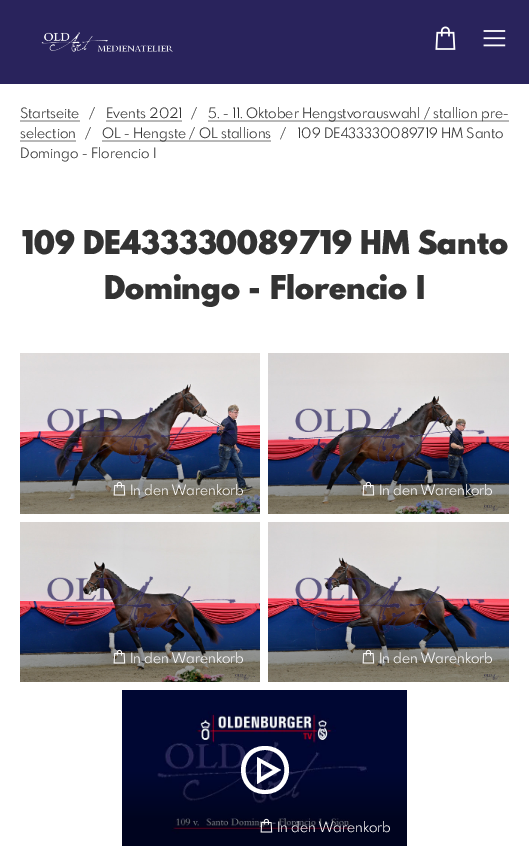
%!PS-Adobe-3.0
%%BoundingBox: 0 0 529 846
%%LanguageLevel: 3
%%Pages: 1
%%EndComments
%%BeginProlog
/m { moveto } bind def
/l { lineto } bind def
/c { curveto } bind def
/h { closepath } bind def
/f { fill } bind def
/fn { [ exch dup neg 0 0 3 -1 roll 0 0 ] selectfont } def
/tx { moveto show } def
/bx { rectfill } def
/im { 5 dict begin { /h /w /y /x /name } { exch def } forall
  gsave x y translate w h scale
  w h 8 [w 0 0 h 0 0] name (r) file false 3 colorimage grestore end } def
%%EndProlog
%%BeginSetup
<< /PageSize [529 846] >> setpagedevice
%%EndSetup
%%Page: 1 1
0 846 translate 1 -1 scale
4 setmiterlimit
1 setgray
0 0 529 846 bx
0.161 0.137 0.361 setrgbcolor
0 0 529 84 bx
(image0.raw) 41 32 132 20 im
(image1.raw) 435 26 21 24 im
(image2.raw) 483 30 23 17 im
/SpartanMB-Regular 14 fn
0.2 setgray
(Startseite) 20 118 tx
0.722 setgray
20 120 60 2 bx
0.2 setgray
(/) 89 118 tx
(Events 2021) 106 118 tx
0.722 setgray
106 120 76 2 bx
0.2 setgray
(/) 191 118 tx
0.722 setgray
208 120 301 2 bx
0.2 setgray
(5. - 11. Oktober Hengstvorauswahl / stallion pre-) 208 118 tx
(selection) 20 138 tx
0.722 setgray
20 140 56 2 bx
0.2 setgray
(/) 85 138 tx
0.722 setgray
102 140 169 2 bx
0.2 setgray
(OL - Hengste / OL stallions) 102 138 tx
(/) 280 138 tx
(109 DE433330089719 HM Santo) 297 138 tx
(Domingo - Florencio I) 20 158 tx
/SpartanMB-Black 31.9 fn
(109 DE433330089719 HM Santo) 21 254 tx
(Domingo - Florencio I) 104 299 tx
(image3.raw) 20 353 240 161 im
(image4.raw) 113 481 13 15 im
/SpartanMB-Regular 14 fn
0.988 0.98 0.98 setrgbcolor
(In den Warenkorb) 130 495 tx
(image5.raw) 268 353 241 161 im
(image6.raw) 362 481 13 15 im
(In den Warenkorb) 379 495 tx
(image7.raw) 20 522 240 160 im
(image8.raw) 113 649 13 15 im
(In den Warenkorb) 130 663 tx
(image9.raw) 268 522 241 160 im
(image10.raw) 362 649 13 15 im
(In den Warenkorb) 379 663 tx
(image11.raw) 122 690 285 156 im
1 setgray
265 746 m 233 746 233 794 265 794 c 297 794 297 746 265 746 c h 265 750 m 291 750 291 790 265 790 c 239 790 239 750 265 750 c h 257 757 m 257 784 l 281 770 l h 261 763 m 273 770 l 261 777 l h f
(image12.raw) 260 818 13 15 im
0.988 0.98 0.98 setrgbcolor
(In den Warenkorb) 277 832 tx
showpage
%%EOF
